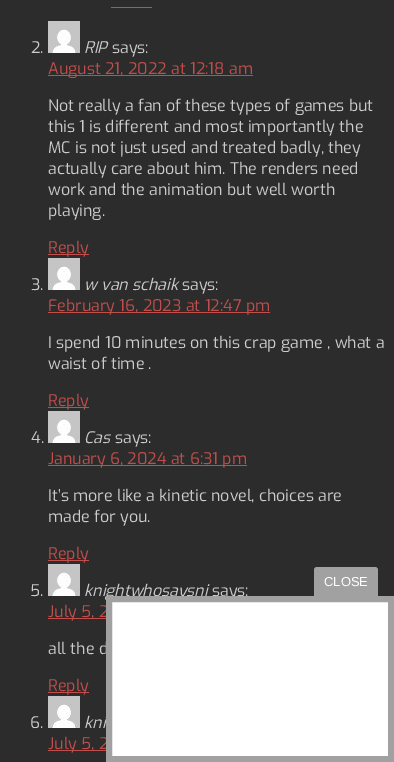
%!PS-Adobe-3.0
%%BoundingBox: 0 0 394 762
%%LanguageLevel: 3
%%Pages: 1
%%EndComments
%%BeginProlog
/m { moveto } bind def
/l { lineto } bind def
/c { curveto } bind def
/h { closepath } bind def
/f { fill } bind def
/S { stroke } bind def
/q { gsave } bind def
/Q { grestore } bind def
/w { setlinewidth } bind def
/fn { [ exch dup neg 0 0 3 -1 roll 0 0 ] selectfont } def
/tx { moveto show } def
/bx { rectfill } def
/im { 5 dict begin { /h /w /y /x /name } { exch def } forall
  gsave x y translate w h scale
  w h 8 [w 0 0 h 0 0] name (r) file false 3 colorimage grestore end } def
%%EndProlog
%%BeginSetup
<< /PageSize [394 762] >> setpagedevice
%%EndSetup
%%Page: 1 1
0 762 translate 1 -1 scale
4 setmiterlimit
0.173 setgray
0 0 394 762 bx
0.761 0.306 0.298 setrgbcolor
111 7 41 1 bx
/Exo-Regular 16 fn
0.8 setgray
(2.) 31 53 tx
(image0.raw) 48 21 32 32 im
/Exo-Italic 16 fn
(RIP) 84 53 tx
/Exo-Regular 16 fn
(says:) 112 53 tx
0.761 0.306 0.298 setrgbcolor
48 75 205 1 bx
(August 21, 2022 at 12:18 am) 48 74 tx
0.8 setgray
(Not really a fan of these types of games but) 48 111 tx
(this 1 is different and most importantly the) 48 132 tx
(MC is not just used and treated badly, they) 48 153 tx
(actually care about him. The renders need) 48 174 tx
(work and the animation but well worth) 48 195 tx
(playing.) 48 216 tx
0.761 0.306 0.298 setrgbcolor
48 254 41 1 bx
(Reply) 48 253 tx
0.8 setgray
(3.) 31 290 tx
(image0.raw) 48 258 32 32 im
/Exo-Italic 16 fn
(w van schaik) 84 290 tx
/Exo-Regular 16 fn
(says:) 182 290 tx
0.761 0.306 0.298 setrgbcolor
48 312 222 1 bx
(February 16, 2023 at 12:47 pm) 48 311 tx
0.8 setgray
(I spend 10 minutes on this crap game , what a) 48 348 tx
(waist of time .) 48 369 tx
0.761 0.306 0.298 setrgbcolor
48 407 41 1 bx
(Reply) 48 406 tx
0.8 setgray
(4.) 31 443 tx
(image0.raw) 48 411 32 32 im
/Exo-Italic 16 fn
(Cas) 84 443 tx
/Exo-Regular 16 fn
(says:) 115 443 tx
0.761 0.306 0.298 setrgbcolor
48 465 199 1 bx
(January 6, 2024 at 6:31 pm) 48 464 tx
0.8 setgray
(It’s more like a kinetic novel, choices are) 48 501 tx
(made for you.) 48 522 tx
0.761 0.306 0.298 setrgbcolor
48 560 41 1 bx
(Reply) 48 559 tx
0.8 setgray
(5.) 30 596 tx
(image0.raw) 48 564 32 32 im
/Exo-Italic 16 fn
(knightwhosaysni) 84 596 tx
/Exo-Regular 16 fn
(says:) 212 596 tx
0.761 0.306 0.298 setrgbcolor
48 618 58 1 bx
(July 5, 2) 48 617 tx
0.8 setgray
(all the d) 48 654 tx
0.761 0.306 0.298 setrgbcolor
48 692 41 1 bx
(Reply) 48 691 tx
0.8 setgray
(6.) 30 728 tx
(image0.raw) 48 696 32 32 im
/Exo-Italic 16 fn
(kni) 84 728 tx
0.761 0.306 0.298 setrgbcolor
48 750 58 1 bx
/Exo-Regular 16 fn
(July 5, 2) 48 749 tx
1 setgray
109 599 m 391 599 l 391 759 l 109 759 l h q f Q
0.631 setgray
6 w
S
317 567 m 375 567 l 376.5 567 378 568.5 378 570 c 378 597 l 314 597 l 314 570 l 314 568.5 315.5 567 317 567 c h f
/LiberationSans-Regular 13 fn
1 setgray
(CLOSE) 324 586 tx
showpage
%%EOF
